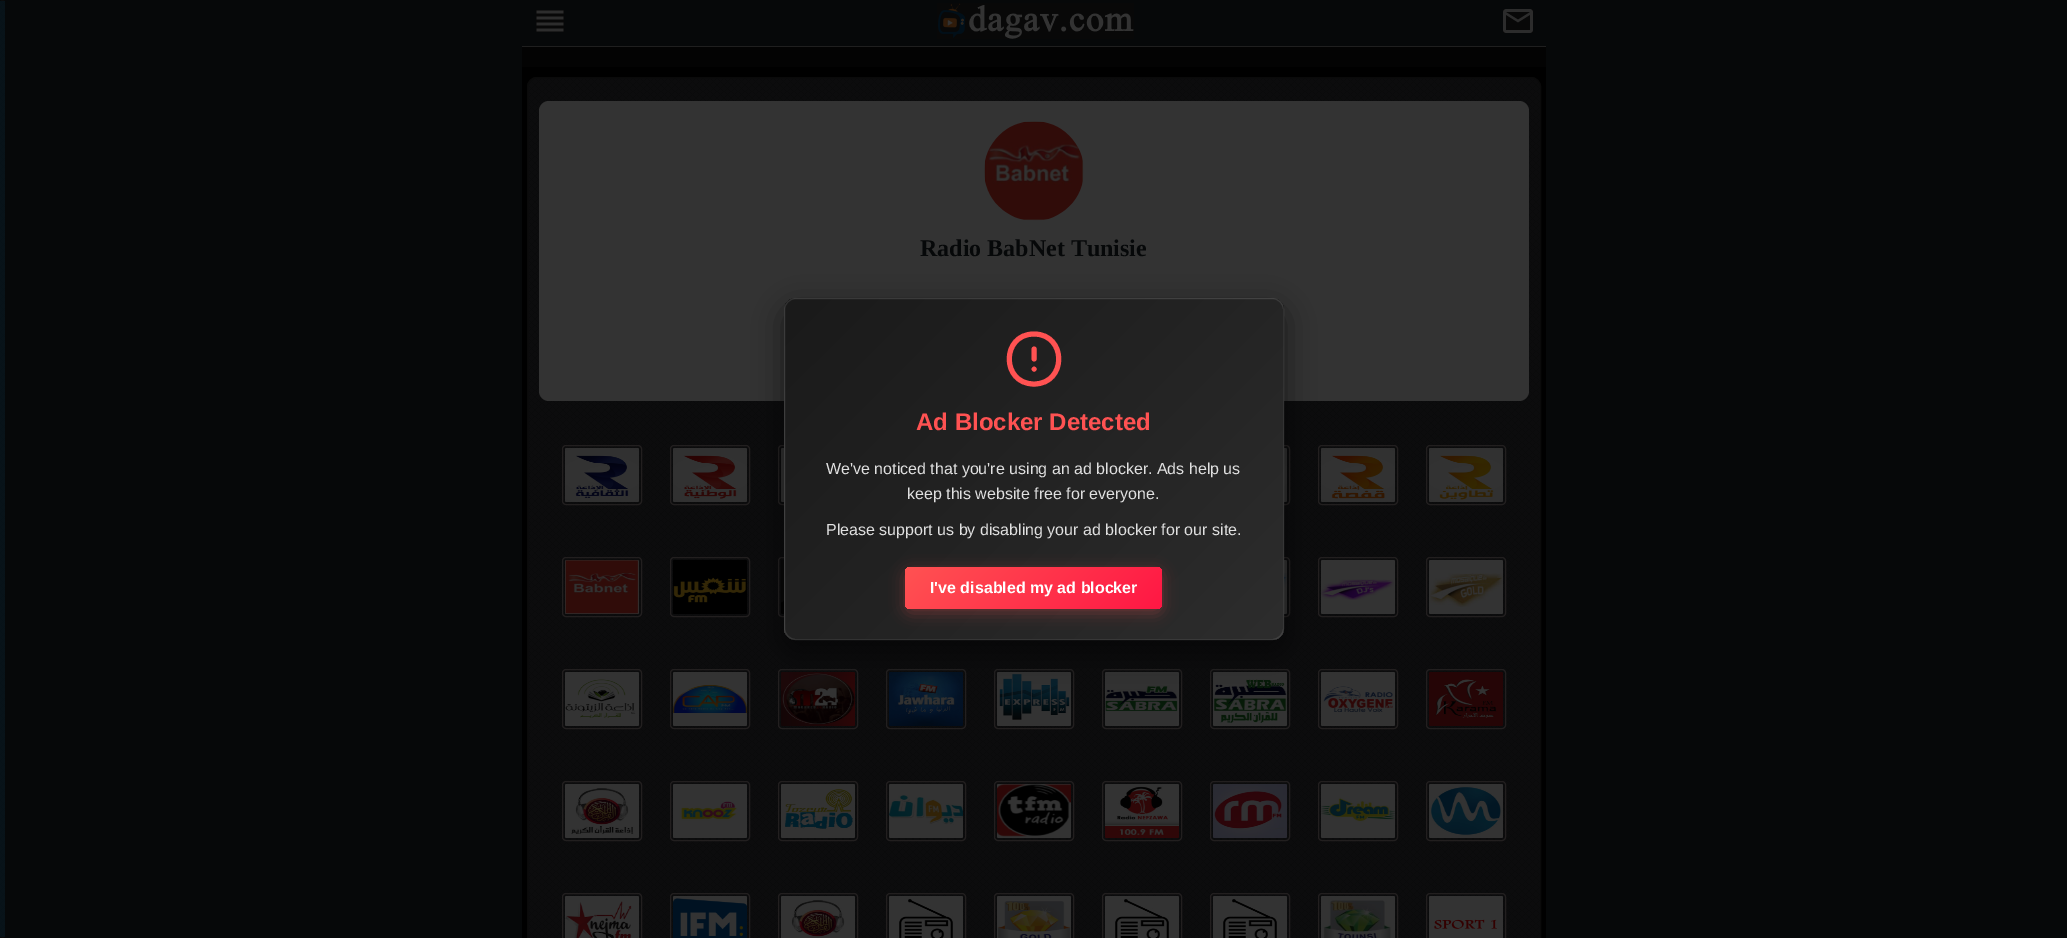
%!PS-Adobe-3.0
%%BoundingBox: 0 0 2067 938
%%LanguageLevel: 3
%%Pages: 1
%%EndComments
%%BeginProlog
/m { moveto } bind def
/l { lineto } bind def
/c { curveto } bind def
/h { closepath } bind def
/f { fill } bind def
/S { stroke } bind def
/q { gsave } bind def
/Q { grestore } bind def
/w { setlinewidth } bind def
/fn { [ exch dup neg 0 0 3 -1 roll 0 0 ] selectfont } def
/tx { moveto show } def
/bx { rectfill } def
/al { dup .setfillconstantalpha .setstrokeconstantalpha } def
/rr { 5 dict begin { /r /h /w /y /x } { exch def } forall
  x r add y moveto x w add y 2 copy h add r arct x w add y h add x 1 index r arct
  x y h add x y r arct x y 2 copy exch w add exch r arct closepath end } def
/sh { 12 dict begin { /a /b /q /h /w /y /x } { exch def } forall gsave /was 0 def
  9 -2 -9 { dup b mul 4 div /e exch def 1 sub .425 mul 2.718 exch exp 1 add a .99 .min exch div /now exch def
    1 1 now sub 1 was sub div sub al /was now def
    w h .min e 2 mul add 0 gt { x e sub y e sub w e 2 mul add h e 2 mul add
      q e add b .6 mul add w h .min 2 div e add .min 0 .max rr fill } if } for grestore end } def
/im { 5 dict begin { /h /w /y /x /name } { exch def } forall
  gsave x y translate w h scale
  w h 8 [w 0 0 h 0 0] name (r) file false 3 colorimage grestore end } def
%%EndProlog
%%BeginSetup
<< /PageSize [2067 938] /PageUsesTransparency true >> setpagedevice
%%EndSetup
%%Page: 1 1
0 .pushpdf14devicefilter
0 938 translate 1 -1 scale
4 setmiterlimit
0.024 0.031 0.035 setrgbcolor
0 0 2067 938 bx
0 setgray
522 67 1024 871 bx
0.012 setgray
522 47 1024 20 bx
(image0.raw) 0 0 5 938 im
0.34 al
0 0.125 0.192 setrgbcolor
0 1 5 936 bx
1 al
(image1.raw) 937 3 197 36 im
0.122 setgray
522 46 1024 1 bx
(image2.raw) 1503 9 30 24 im
(image3.raw) 536 10 28 22 im
(image4.raw) 527 77 1014 861 im
0.039 setgray
527.5 77.5 1013 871 9.5 rr S
0.2 setgray
539 101 990 300 10 rr f
(image5.raw) 984 121 100 100 im
/LiberationSerif-Bold 24 fn
0.024 0.031 0.035 setrgbcolor
(Radio BabNet Tunisie) 920 256 tx
0.133 0.122 0.122 setrgbcolor
562.5 445.5 79 59 3.5 rr S
(image6.raw) 565 448 74 54 im
670.5 445.5 79 59 3.5 rr S
(image7.raw) 673 448 74 54 im
778.5 445.5 79 59 3.5 rr S
(image8.raw) 781 448 3 54 im
1210.5 445.5 79 59 3.5 rr S
(image9.raw) 1284 448 3 54 im
1318.5 445.5 79 59 3.5 rr S
(image10.raw) 1321 448 74 54 im
1426.5 445.5 79 59 3.5 rr S
(image11.raw) 1429 448 74 54 im
562.5 557.5 79 59 3.5 rr S
(image12.raw) 565 560 74 54 im
670.5 557.5 79 59 3.5 rr S
(image13.raw) 673 560 74 54 im
778.5 557.5 79 59 3.5 rr S
(image14.raw) 781 560 3 54 im
1210.5 557.5 79 59 3.5 rr S
(image15.raw) 1284 560 3 54 im
1318.5 557.5 79 59 3.5 rr S
(image16.raw) 1321 560 74 54 im
1426.5 557.5 79 59 3.5 rr S
(image17.raw) 1429 560 74 54 im
562.5 669.5 79 59 3.5 rr S
(image18.raw) 565 672 74 54 im
670.5 669.5 79 59 3.5 rr S
(image19.raw) 673 672 74 54 im
778.5 669.5 79 59 3.5 rr S
(image20.raw) 781 672 74 54 im
886.5 669.5 79 59 3.5 rr S
(image21.raw) 889 672 74 54 im
994.5 669.5 79 59 3.5 rr S
(image22.raw) 997 672 74 54 im
1102.5 669.5 79 59 3.5 rr S
(image23.raw) 1105 672 74 54 im
1210.5 669.5 79 59 3.5 rr S
(image24.raw) 1213 672 74 54 im
1318.5 669.5 79 59 3.5 rr S
(image25.raw) 1321 672 74 54 im
1426.5 669.5 79 59 3.5 rr S
(image26.raw) 1429 672 74 54 im
562.5 781.5 79 59 3.5 rr S
(image27.raw) 565 784 74 54 im
670.5 781.5 79 59 3.5 rr S
(image28.raw) 673 784 74 54 im
778.5 781.5 79 59 3.5 rr S
(image29.raw) 781 784 74 54 im
886.5 781.5 79 59 3.5 rr S
(image30.raw) 889 784 74 54 im
994.5 781.5 79 59 3.5 rr S
(image31.raw) 997 784 74 54 im
1102.5 781.5 79 59 3.5 rr S
(image32.raw) 1105 784 74 54 im
1210.5 781.5 79 59 3.5 rr S
(image33.raw) 1213 784 74 54 im
1318.5 781.5 79 59 3.5 rr S
(image34.raw) 1321 784 74 54 im
1426.5 781.5 79 59 3.5 rr S
(image35.raw) 1429 784 74 54 im
562.5 893.5 79 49 3.5 rr S
(image36.raw) 565 896 74 42 im
670.5 893.5 79 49 3.5 rr S
(image37.raw) 673 896 74 42 im
778.5 893.5 79 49 3.5 rr S
(image38.raw) 781 896 74 42 im
886.5 893.5 79 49 3.5 rr S
(image39.raw) 889 896 74 42 im
994.5 893.5 79 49 3.5 rr S
(image40.raw) 997 896 74 42 im
1102.5 893.5 79 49 3.5 rr S
(image41.raw) 1105 896 74 42 im
1210.5 893.5 79 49 3.5 rr S
(image41.raw) 1213 896 74 42 im
1318.5 893.5 79 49 3.5 rr S
(image42.raw) 1321 896 74 42 im
1426.5 893.5 79 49 3.5 rr S
(image43.raw) 1429 896 74 42 im
0 setgray
784 308 500 342 12 15 0.5 sh
q
784 298 500 342 12 rr clip newpath
q 785 298 m 1283 298 l 1283 299 l 785 299 l h clip newpath
<< /ShadingType 2 /ColorSpace /DeviceRGB /Coords [825 -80 1244 339] /Extend [true true] /Function << /FunctionType 2 /Domain [0 1] /C0 [0.102 0.102 0.102] /C1 [0.176 0.176 0.176] /N 1 >> >> shfill Q
q 784 299 m 785 299 l 785 639 l 784 639 l h clip newpath
<< /ShadingType 2 /ColorSpace /DeviceRGB /Coords [327 260 746 679] /Extend [true true] /Function << /FunctionType 2 /Domain [0 1] /C0 [0.102 0.102 0.102] /C1 [0.176 0.176 0.176] /N 1 >> >> shfill Q
q 785 299 m 1283 299 l 1283 639 l 785 639 l h clip newpath
<< /ShadingType 2 /ColorSpace /DeviceRGB /Coords [825 260 1244 679] /Extend [true true] /Function << /FunctionType 2 /Domain [0 1] /C0 [0.102 0.102 0.102] /C1 [0.176 0.176 0.176] /N 1 >> >> shfill Q
q 1283 299 m 1284 299 l 1284 639 l 1283 639 l h clip newpath
<< /ShadingType 2 /ColorSpace /DeviceRGB /Coords [1323 260 1742 679] /Extend [true true] /Function << /FunctionType 2 /Domain [0 1] /C0 [0.102 0.102 0.102] /C1 [0.176 0.176 0.176] /N 1 >> >> shfill Q
q 785 639 m 1283 639 l 1283 640 l 785 640 l h clip newpath
<< /ShadingType 2 /ColorSpace /DeviceRGB /Coords [825 600 1244 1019] /Extend [true true] /Function << /FunctionType 2 /Domain [0 1] /C0 [0.102 0.102 0.102] /C1 [0.176 0.176 0.176] /N 1 >> >> shfill Q
Q
0.1 al
1 setgray
784.5 298.5 499 341 11.5 rr S
1 al
1 0.322 0.322 setrgbcolor
5 w
1 setlinecap
1 setlinejoin
1034 384 m 1067 384 1067 334 1034 334 c 1001 334 1001 384 1034 384 c h 1034 349 m 1034 359 l 1034 369 m 1034 369 l S
/LiberationSans-Bold 24 fn
(Ad Blocker Detected) 916 430 tx
/LiberationSans-Regular 16 fn
0.878 setgray
(We've noticed that you're using an ad blocker. Ads help us) 826 474 tx
(keep this website free for everyone.) 907 499 tx
(Please support us by disabling your ad blocker for our site.) 826 535 tx
1 0.322 0.322 setrgbcolor
905 571 257 42 6 7.5 0.3 sh
q 905 567 257 42 6 rr clip newpath
<< /ShadingType 2 /ColorSpace /DeviceRGB /Coords [959 513 1108 663] /Extend [true true] /Function << /FunctionType 2 /Domain [0 1] /C0 [1 0.322 0.322] /C1 [1 0.09 0.267] /N 1 >> >> shfill Q
/LiberationSans-Bold 16 fn
1 setgray
(I've disabled my ad blocker) 930 593 tx
.poppdf14devicefilter showpage
%%EOF
